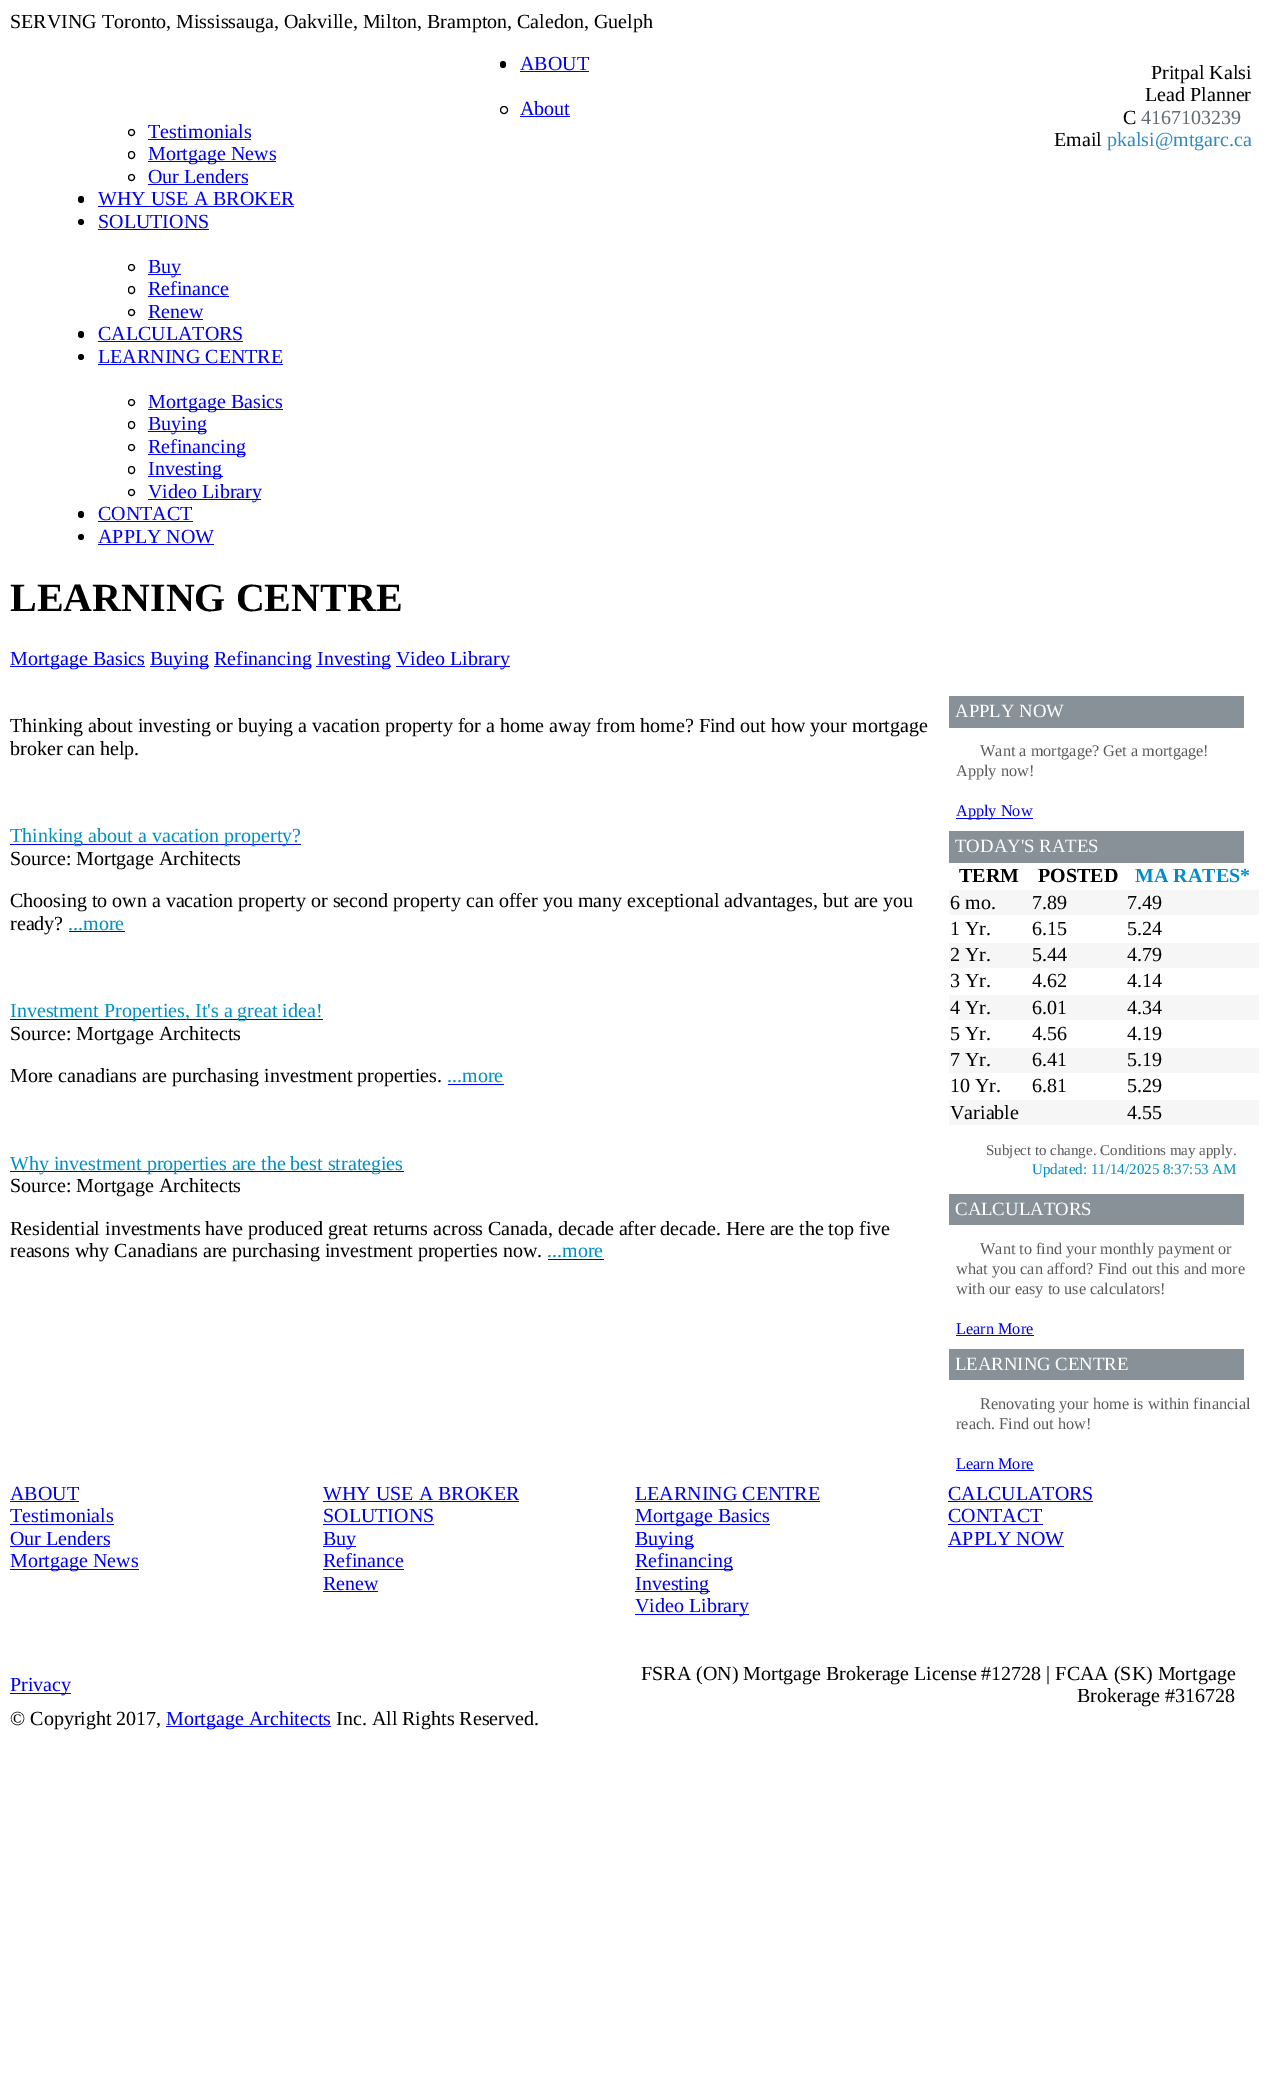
%!PS-Adobe-3.0
%%BoundingBox: 0 0 1270 2086
%%LanguageLevel: 3
%%Pages: 1
%%EndComments
%%BeginProlog
/f { fill } bind def
/S { stroke } bind def
/fn { [ exch dup neg 0 0 3 -1 roll 0 0 ] selectfont } def
/tx { moveto show } def
/bx { rectfill } def
/ci { newpath 0 360 arc closepath } def
/rr { 5 dict begin { /r /h /w /y /x } { exch def } forall
  x r add y moveto x w add y 2 copy h add r arct x w add y h add x 1 index r arct
  x y h add x y r arct x y 2 copy exch w add exch r arct closepath end } def
%%EndProlog
%%BeginSetup
<< /PageSize [1270 2086] >> setpagedevice
%%EndSetup
%%Page: 1 1
0 2086 translate 1 -1 scale
4 setmiterlimit
1 setgray
0 0 1270 2086 bx
/LiberationSerif-Regular 20 fn
0 setgray
(SERVING Toronto, Mississauga, Oakville, Milton, Brampton, Caledon, Guelph) 10 28 tx
500 61 6 7 3 rr f
0 0 0.933 setrgbcolor
(ABOUT) 520 70 tx
520 71 69 1 bx
0 setgray
504 110 3.5 ci S
0 0 0.933 setrgbcolor
(About) 520 115 tx
520 116 50 1 bx
0 setgray
131.5 132.5 3 ci S
0 0 0.933 setrgbcolor
(Testimonials) 148 138 tx
148 139 103 1 bx
0 setgray
128.5 151.5 6 7 3 rr S
0 0 0.933 setrgbcolor
148 161 128 1 bx
(Mortgage News) 148 160 tx
0 setgray
131.5 177.5 3 ci S
0 0 0.933 setrgbcolor
(Our Lenders) 148 183 tx
148 184 100 1 bx
0 setgray
78 196 6 7 3 rr f
0 0 0.933 setrgbcolor
(WHY USE A BROKER) 98 205 tx
98 206 196 1 bx
0 setgray
81 222 3 ci f
0 0 0.933 setrgbcolor
(SOLUTIONS) 98 228 tx
98 229 111 1 bx
0 setgray
131.5 267.5 3 ci S
0 0 0.933 setrgbcolor
148 274 33 1 bx
(Buy) 148 273 tx
0 setgray
128.5 286.5 6 7 3 rr S
0 0 0.933 setrgbcolor
(Refinance) 148 295 tx
148 296 81 1 bx
0 setgray
131.5 312.5 3 ci S
0 0 0.933 setrgbcolor
(Renew) 148 318 tx
148 319 55 1 bx
0 setgray
78 331 6 7 3 rr f
0 0 0.933 setrgbcolor
(CALCULATORS) 98 340 tx
98 341 145 1 bx
0 setgray
81 357 3 ci f
0 0 0.933 setrgbcolor
(LEARNING CENTRE) 98 363 tx
98 364 185 1 bx
0 setgray
131.5 402.5 3 ci S
0 0 0.933 setrgbcolor
148 409 135 1 bx
(Mortgage Basics) 148 408 tx
0 setgray
128.5 421.5 6 7 3 rr S
0 0 0.933 setrgbcolor
148 431 58 1 bx
(Buying) 148 430 tx
0 setgray
131.5 447.5 3 ci S
0 0 0.933 setrgbcolor
148 454 97 1 bx
(Refinancing) 148 453 tx
0 setgray
128.5 466.5 6 7 3 rr S
0 0 0.933 setrgbcolor
148 476 75 1 bx
(Investing) 148 475 tx
0 setgray
131.5 492.5 3 ci S
0 0 0.933 setrgbcolor
148 499 113 1 bx
(Video Library) 148 498 tx
0 setgray
78 511 6 7 3 rr f
0 0 0.933 setrgbcolor
(CONTACT) 98 520 tx
98 521 95 1 bx
0 setgray
81 537 3 ci f
0 0 0.933 setrgbcolor
(APPLY NOW) 98 543 tx
98 544 116 1 bx
0 setgray
(Pritpal Kalsi) 1151 79 tx
(Lead Planner) 1145 101 tx
(C) 1123 124 tx
0.38 0.416 0.439 setrgbcolor
(4167103239) 1141 124 tx
0 setgray
(Email) 1054 146 tx
0.176 0.545 0.757 setrgbcolor
(pkalsi@mtgarc.ca) 1107 146 tx
/LiberationSerif-Bold 40 fn
0 setgray
(LEARNING CENTRE) 10 611 tx
0 0 0.933 setrgbcolor
10 666 135 1 bx
/LiberationSerif-Regular 20 fn
(Mortgage Basics) 10 665 tx
150 666 59 1 bx
(Buying) 150 665 tx
214 666 97 1 bx
(Refinancing) 214 665 tx
316 666 75 1 bx
(Investing) 317 665 tx
396 666 114 1 bx
(Video Library) 396 665 tx
0 setgray
(Thinking about investing or buying a vacation property for a home away from home? Find out how your mortgage) 10 732 tx
(broker can help.) 10 755 tx
0 0 0.933 setrgbcolor
10 844 291 1 bx
0.008 0.561 0.769 setrgbcolor
(Thinking about a vacation property?) 10 842 tx
0 setgray
(Source: Mortgage Architects) 10 865 tx
(Choosing to own a vacation property or second property can offer you many exceptional advantages, but are you) 10 907 tx
(ready?) 10 930 tx
0.008 0.561 0.769 setrgbcolor
(...more) 68 930 tx
0 0 0.933 setrgbcolor
69 931 56 1 bx
10 1019 313 1 bx
0.008 0.561 0.769 setrgbcolor
(Investment Properties, It's a great idea!) 10 1017 tx
0 setgray
(Source: Mortgage Architects) 10 1040 tx
(More canadians are purchasing investment properties.) 10 1082 tx
0.008 0.561 0.769 setrgbcolor
(...more) 447 1082 tx
0 0 0.933 setrgbcolor
448 1084 56 1 bx
10 1171 394 1 bx
0.008 0.561 0.769 setrgbcolor
(Why investment properties are the best strategies) 10 1170 tx
0 setgray
(Source: Mortgage Architects) 10 1192 tx
(Residential investments have produced great returns across Canada, decade after decade. Here are the top five) 10 1235 tx
(reasons why Canadians are purchasing investment properties now.) 10 1257 tx
0.008 0.561 0.769 setrgbcolor
(...more) 547 1257 tx
0 0 0.933 setrgbcolor
548 1259 56 1 bx
0.533 0.569 0.592 setrgbcolor
949 696 295 32 bx
/LiberationSerif-Regular 18.75 fn
1 setgray
(APPLY NOW) 955 717 tx
/LiberationSerif-Regular 16.25 fn
0.357 setgray
(Want a mortgage? Get a mortgage!) 980 756 tx
(Apply now!) 956 776 tx
0 0 0.933 setrgbcolor
956 818 77 1 bx
(Apply Now) 956 816 tx
0.533 0.569 0.592 setrgbcolor
949 831 295 32 bx
/LiberationSerif-Regular 18.75 fn
1 setgray
(TODAY'S RATES) 955 852 tx
/LiberationSerif-Bold 20 fn
0 setgray
(TERM) 959 882 tx
(POSTED) 1038 882 tx
0 0.545 0.812 setrgbcolor
(MA RATES*) 1135 882 tx
0.965 setgray
949 890 310 25 bx
/LiberationSerif-Regular 20 fn
0 setgray
(6 mo.) 950 909 tx
(7.89) 1032 909 tx
(7.49) 1127 909 tx
(1 Yr.) 950 935 tx
(6.15) 1032 935 tx
(5.24) 1127 935 tx
0.965 setgray
949 943 310 25 bx
0 setgray
(2 Yr.) 950 961 tx
(5.44) 1032 961 tx
(4.79) 1127 961 tx
(3 Yr.) 950 987 tx
(4.62) 1032 987 tx
(4.14) 1127 987 tx
0.965 setgray
949 995 310 25 bx
0 setgray
(4 Yr.) 950 1014 tx
(6.01) 1032 1014 tx
(4.34) 1127 1014 tx
(5 Yr.) 950 1040 tx
(4.56) 1032 1040 tx
(4.19) 1127 1040 tx
0.965 setgray
949 1048 310 25 bx
0 setgray
(7 Yr.) 950 1066 tx
(6.41) 1032 1066 tx
(5.19) 1127 1066 tx
(10 Yr.) 950 1092 tx
(6.81) 1032 1092 tx
(5.29) 1127 1092 tx
0.965 setgray
949 1100 310 25 bx
0 setgray
(Variable) 950 1119 tx
(4.55) 1127 1119 tx
/LiberationSerif-Regular 15 fn
0.357 setgray
(Subject to change. Conditions may apply.) 986 1155 tx
0.008 0.561 0.769 setrgbcolor
(Updated: 11/14/2025 8:37:53 AM) 1032 1174 tx
0.533 0.569 0.592 setrgbcolor
949 1194 295 31 bx
/LiberationSerif-Regular 18.75 fn
1 setgray
(CALCULATORS) 955 1215 tx
/LiberationSerif-Regular 16.25 fn
0.357 setgray
(Want to find your monthly payment or) 980 1254 tx
(what you can afford? Find out this and more) 956 1274 tx
(with our easy to use calculators!) 956 1294 tx
0 0 0.933 setrgbcolor
(Learn More) 956 1334 tx
956 1335 78 1 bx
0.533 0.569 0.592 setrgbcolor
949 1349 295 31 bx
/LiberationSerif-Regular 18.75 fn
1 setgray
(LEARNING CENTRE) 955 1370 tx
/LiberationSerif-Regular 16.25 fn
0.357 setgray
(Renovating your home is within financial) 980 1409 tx
(reach. Find out how!) 956 1429 tx
0 0 0.933 setrgbcolor
(Learn More) 956 1469 tx
956 1470 78 1 bx
/LiberationSerif-Regular 20 fn
(ABOUT) 10 1500 tx
10 1501 69 1 bx
(Testimonials) 10 1522 tx
10 1524 104 1 bx
(Our Lenders) 10 1545 tx
10 1546 100 1 bx
10 1569 129 1 bx
(Mortgage News) 10 1567 tx
(WHY USE A BROKER) 323 1500 tx
323 1501 196 1 bx
(SOLUTIONS) 323 1522 tx
323 1524 111 1 bx
323 1546 33 1 bx
(Buy) 323 1545 tx
(Refinance) 323 1567 tx
323 1569 81 1 bx
(Renew) 323 1590 tx
323 1591 55 1 bx
(LEARNING CENTRE) 635 1500 tx
635 1501 185 1 bx
635 1524 135 1 bx
(Mortgage Basics) 635 1522 tx
635 1546 59 1 bx
(Buying) 635 1545 tx
635 1569 98 1 bx
(Refinancing) 635 1567 tx
635 1591 75 1 bx
(Investing) 635 1590 tx
635 1614 114 1 bx
(Video Library) 635 1612 tx
(CALCULATORS) 948 1500 tx
948 1501 145 1 bx
(CONTACT) 948 1522 tx
948 1524 95 1 bx
(APPLY NOW) 948 1545 tx
948 1546 116 1 bx
10 1693 61 1 bx
(Privacy) 10 1691 tx
0 setgray
(FSRA \(ON\) Mortgage Brokerage License #12728 | FCAA \(SK\) Mortgage) 641 1680 tx
(Brokerage #316728) 1077 1702 tx
(© Copyright 2017,) 10 1725 tx
0 0 0.933 setrgbcolor
166 1726 165 1 bx
(Mortgage Architects) 166 1725 tx
0 setgray
(Inc. All Rights Reserved.) 336 1725 tx
showpage
%%EOF
